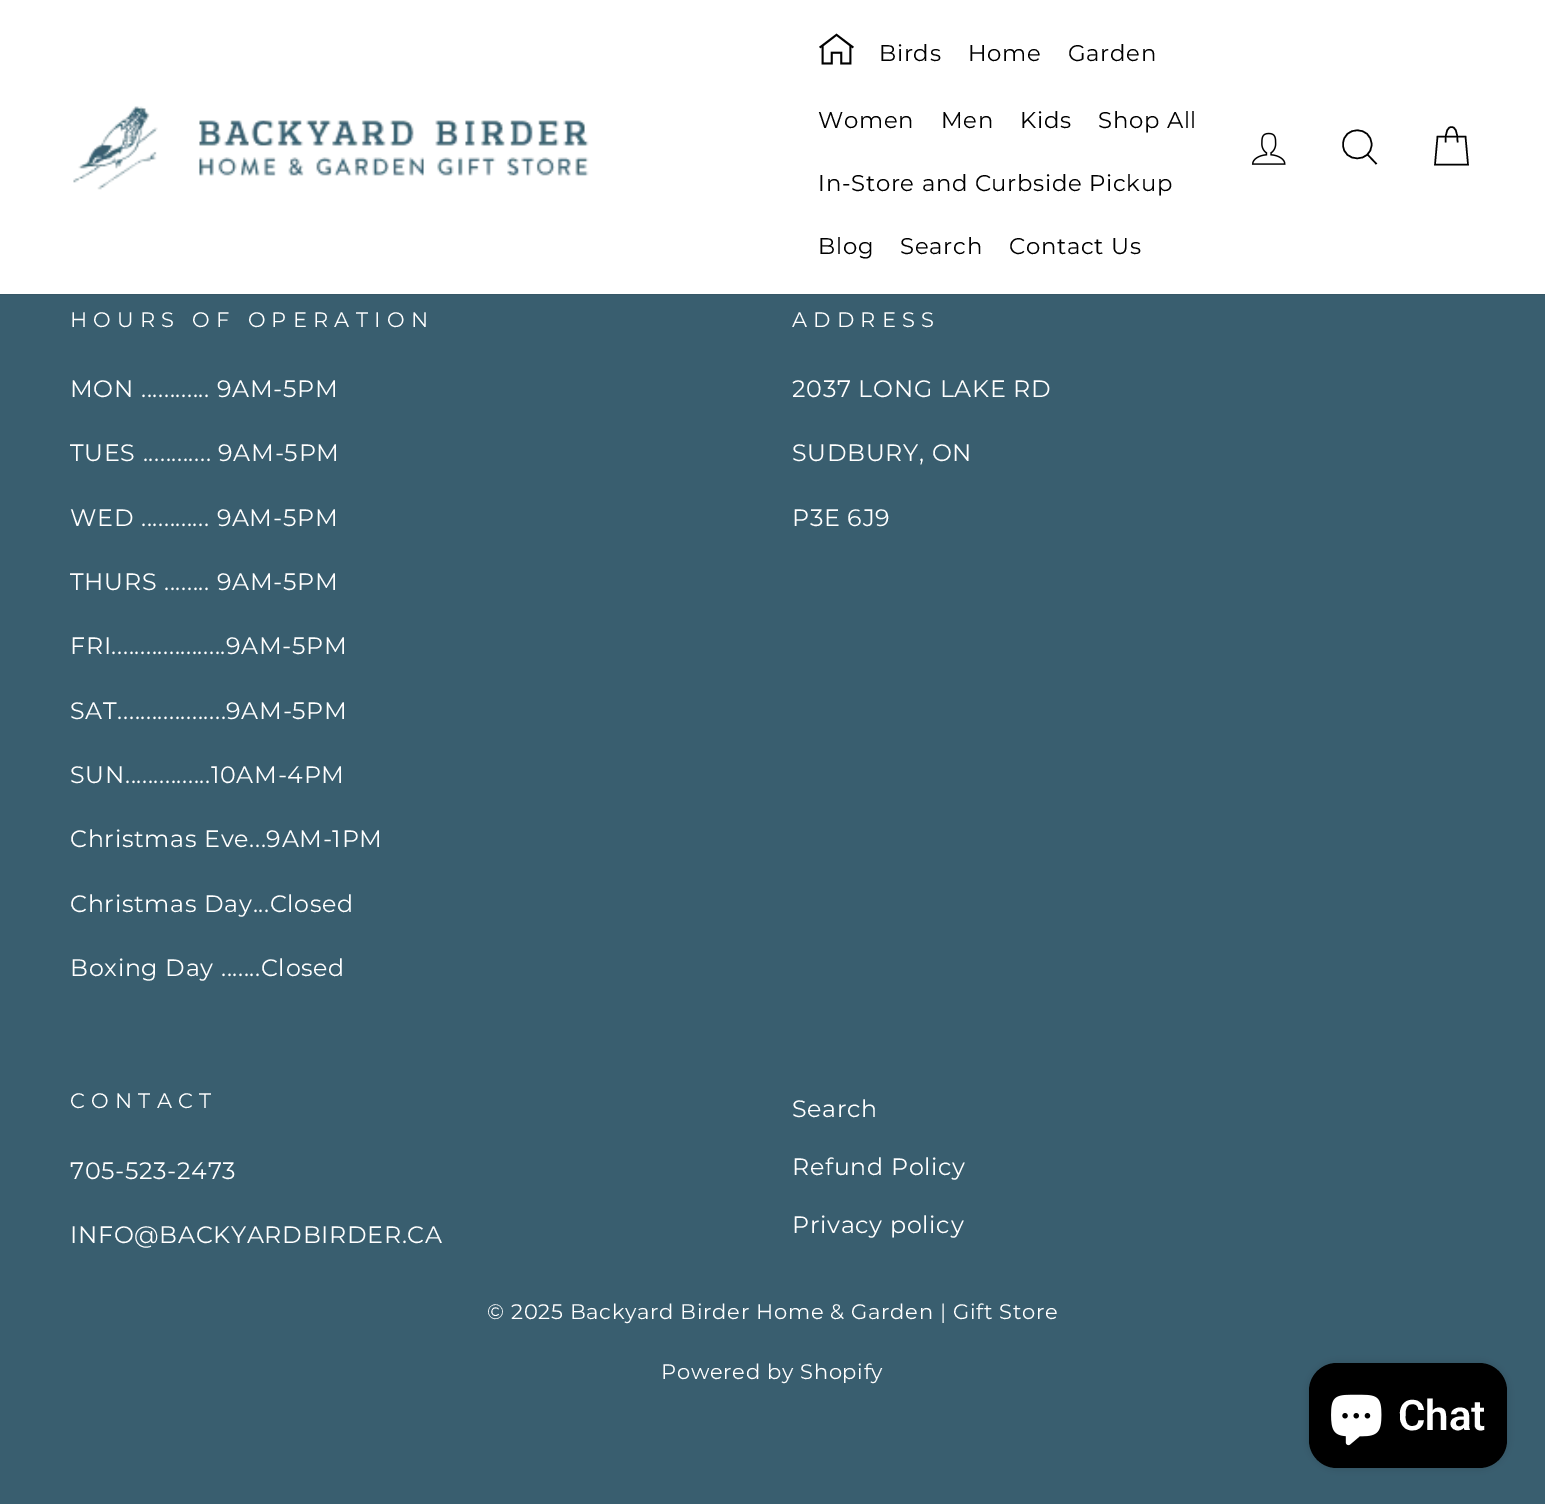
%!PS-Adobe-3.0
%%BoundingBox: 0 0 1545 1504
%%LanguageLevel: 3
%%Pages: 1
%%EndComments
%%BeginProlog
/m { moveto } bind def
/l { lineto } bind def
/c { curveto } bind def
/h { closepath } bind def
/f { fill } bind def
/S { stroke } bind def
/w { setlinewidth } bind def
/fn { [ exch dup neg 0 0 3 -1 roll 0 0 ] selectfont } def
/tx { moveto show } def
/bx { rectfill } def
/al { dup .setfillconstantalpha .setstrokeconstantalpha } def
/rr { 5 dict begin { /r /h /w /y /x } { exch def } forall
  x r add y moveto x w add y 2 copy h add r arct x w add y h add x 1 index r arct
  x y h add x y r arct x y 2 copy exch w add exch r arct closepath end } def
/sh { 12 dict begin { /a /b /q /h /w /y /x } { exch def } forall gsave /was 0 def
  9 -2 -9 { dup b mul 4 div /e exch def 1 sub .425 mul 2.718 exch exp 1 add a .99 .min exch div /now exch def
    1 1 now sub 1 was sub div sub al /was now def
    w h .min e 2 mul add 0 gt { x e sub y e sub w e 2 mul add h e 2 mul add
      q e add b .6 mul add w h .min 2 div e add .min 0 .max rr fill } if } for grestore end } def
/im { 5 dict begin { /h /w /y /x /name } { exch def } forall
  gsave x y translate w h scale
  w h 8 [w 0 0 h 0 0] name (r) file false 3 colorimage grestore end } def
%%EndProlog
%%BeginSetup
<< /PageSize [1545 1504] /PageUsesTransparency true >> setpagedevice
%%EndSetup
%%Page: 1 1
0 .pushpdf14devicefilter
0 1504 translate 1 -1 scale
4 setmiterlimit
0.224 0.369 0.435 setrgbcolor
0 0 1545 1504 bx
0 setgray
0 0 1545 294 0 1 0.2 sh
1 setgray
0 0 1545 294 bx
(image0.raw) 73 106 516 84 im
(image1.raw) 819 33 35 32 im
/Montserrat-Regular 22.75 fn
0 setgray
879 61 m 0.7 0 (Birds) ashow
968 61 m 0.7 0 (Home) ashow
1068 61 m 0.7 0 (Garden) ashow
818 128 m 0.7 0 (Women) ashow
941 128 m 0.7 0 (Men) ashow
1020 128 m 0.7 0 (Kids) ashow
1098 128 m 0.7 0 (Shop All) ashow
818 191 m 0.7 0 (In-Store and Curbside Pickup) ashow
818 254 m 0.7 0 (Blog) ashow
900 254 m 0.7 0 (Search) ashow
1009 254 m 0.7 0 (Contact Us) ashow
(image2.raw) 1251 132 35 33 im
1.5 w
1371.5 144.5 m 1371.5 163 1343 163 1343 144.5 c 1343 125.5 1371.5 125.5 1371.5 144.5 c h 1376.5 164 m 1367.5 154.5 l S
1445.5 142.5 m 1445.5 130.5 1448 127 1451.5 127 c 1455 127 1457.5 130.5 1457.5 142.5 c 1437.5 136.5 m 1465.5 136.5 l 1468 164.5 l 1435 164.5 l h S
/Montserrat-Regular 21 fn
1 setgray
70 327 m 6.25 0 (HOURS OF OPERATION) ashow
/Montserrat-Regular 23.75 fn
70 397 m 0.7 0 (MON ............ 9AM-5PM) ashow
70 461 m 0.7 0 (TUES ............ 9AM-5PM) ashow
70 526 m 0.7 0 (WED ............ 9AM-5PM) ashow
70 590 m 0.7 0 (THURS ........ 9AM-5PM) ashow
70 654 m 0.7 0 (FRI....................9AM-5PM) ashow
70 719 m 0.7 0 (SAT...................9AM-5PM) ashow
70 783 m 0.7 0 (SUN...............10AM-4PM) ashow
70 847 m 0.7 0 (Christmas Eve...9AM-1PM) ashow
70 912 m 0.7 0 (Christmas Day...Closed) ashow
70 976 m 0.7 0 (Boxing Day .......Closed) ashow
/Montserrat-Regular 21 fn
792 327 m 6.25 0 (ADDRESS) ashow
/Montserrat-Regular 23.75 fn
792 397 m 0.7 0 (2037 LONG LAKE RD) ashow
792 461 m 0.7 0 (SUDBURY, ON) ashow
792 526 m 0.7 0 (P3E 6J9) ashow
/Montserrat-Regular 21 fn
70 1108 m 6.25 0 (CONTACT) ashow
/Montserrat-Regular 23.75 fn
70 1179 m 0.7 0 (705-523-2473) ashow
70 1243 m 0.7 0 (INFO@BACKYARDBIRDER.CA) ashow
792 1117 m 0.7 0 (Search) ashow
792 1175 m 0.7 0 (Refund Policy) ashow
792 1233 m 0.7 0 (Privacy policy) ashow
/Montserrat-Regular 21 fn
487 1319 m 0.7 0 (© 2025 Backyard Birder Home & Garden | Gift Store) ashow
661 1379 m 0.7 0 (Powered by Shopify) ashow
0 setgray
1309 1363 198 105 28 4.5 0.15 sh
1309 1363 198 105 28 rr f
(image3.raw) 1331 1394 51 52 im
/Roboto-SemiBold 42 fn
1 setgray
(Chat) 1398 1430 tx
.poppdf14devicefilter showpage
%%EOF
